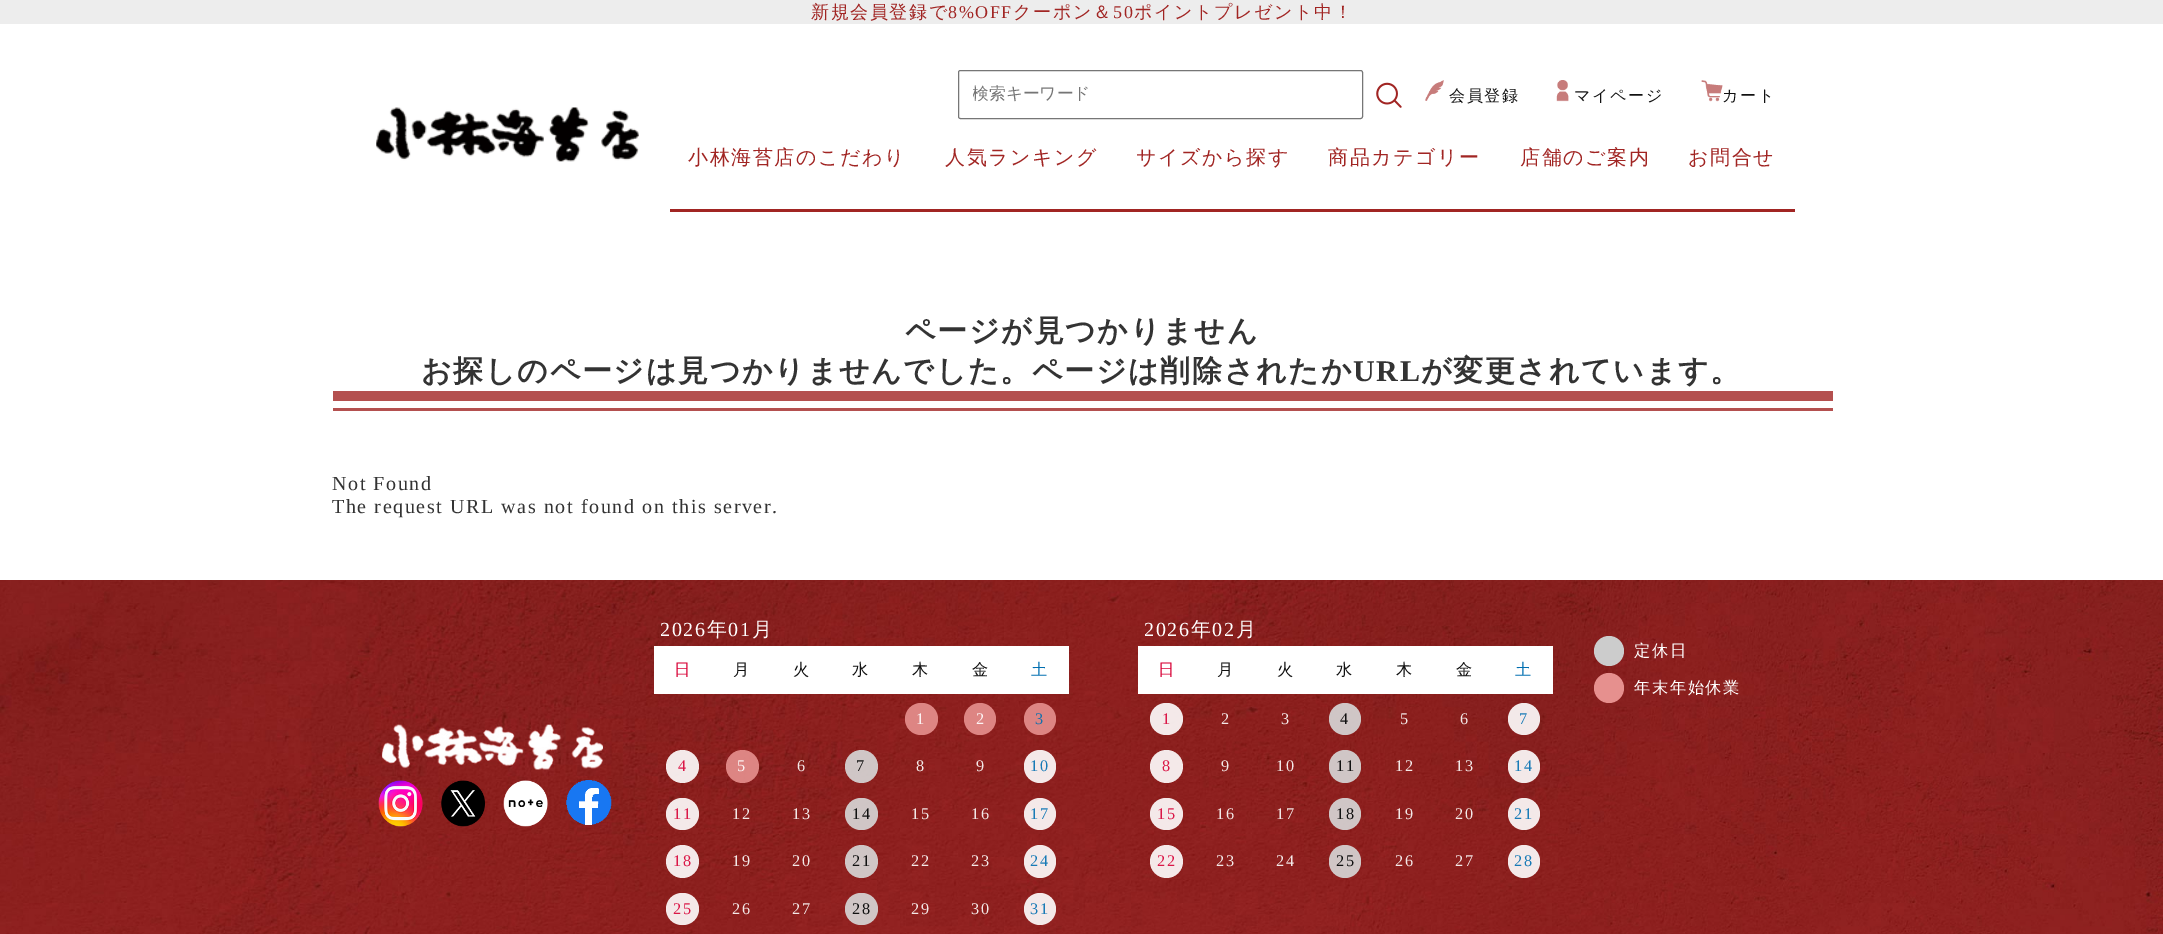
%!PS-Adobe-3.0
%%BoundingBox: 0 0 2163 934
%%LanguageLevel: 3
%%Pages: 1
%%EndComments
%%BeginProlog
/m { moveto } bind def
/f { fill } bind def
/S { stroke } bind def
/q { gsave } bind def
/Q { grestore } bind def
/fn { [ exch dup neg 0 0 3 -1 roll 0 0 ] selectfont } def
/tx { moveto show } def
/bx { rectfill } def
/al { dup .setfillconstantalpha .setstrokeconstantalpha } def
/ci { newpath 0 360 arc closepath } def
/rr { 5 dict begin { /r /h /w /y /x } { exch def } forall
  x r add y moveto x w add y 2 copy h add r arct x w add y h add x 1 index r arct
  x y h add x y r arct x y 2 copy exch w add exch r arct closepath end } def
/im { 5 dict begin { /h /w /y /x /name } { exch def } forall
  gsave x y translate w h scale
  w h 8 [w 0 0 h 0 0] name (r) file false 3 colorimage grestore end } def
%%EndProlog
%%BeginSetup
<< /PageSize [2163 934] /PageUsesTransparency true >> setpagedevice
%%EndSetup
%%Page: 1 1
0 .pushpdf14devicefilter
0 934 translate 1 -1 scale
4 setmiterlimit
1 setgray
0 0 2163 934 bx
0.929 setgray
0 0 2163 24 bx
/WenQuanYiZenHei-Medium 18 fn
0.631 0.145 0.137 setrgbcolor
811 18 m 1.6 0 (新規会員登録で) ashow
/LiberationSerif-Regular 18 fn
948 18 m 1.6 0 (8%OFF) ashow
/WenQuanYiZenHei-Medium 18 fn
1013 18 m 1.6 0 (クーポン＆) ashow
/LiberationSerif-Regular 18 fn
1113 18 m 1.6 0 (50) ashow
/WenQuanYiZenHei-Medium 18 fn
1134 18 m 1.6 0 (ポイントプレゼント中！) ashow
(image0.raw) 376 107 263 55 im
0.463 setgray
958.5 70.5 404 48 2 rr S
q
973 84 375 22 rectclip
/WenQuanYiZenHei-Medium 16.75 fn
0.459 setgray
(検索キーワード) 972 99 tx
Q
(image1.raw) 1376 82 26 26 im
(image2.raw) 1425 80 19 21 im
/WenQuanYiZenHei-Medium 16 fn
0.067 setgray
1449 101 m 1.6 0 (会員登録) ashow
(image3.raw) 1556 80 13 22 im
1574 101 m 1.6 0 (マイページ) ashow
(image4.raw) 1701 80 22 22 im
1722 101 m 1.6 0 (カート) ashow
0.631 0.145 0.137 setrgbcolor
670 209 1125 3 bx
/WenQuanYiZenHei-Medium 20 fn
688 164 m 1.6 0 (小林海苔店のこだわり) ashow
945 164 m 1.6 0 (人気ランキング) ashow
1136 164 m 1.6 0 (サイズから探す) ashow
1328 164 m 1.6 0 (商品カテゴリー) ashow
1520 164 m 1.6 0 (店舗のご案内) ashow
1688 164 m 1.6 0 (お問合せ) ashow
0.706 0.314 0.31 setrgbcolor
333 408 1500 3 bx
/WenQuanYiZenHei-Bold 30 fn
0.2 setgray
905 341 m 1.6 0 (ページが見つかりません) ashow
421 381 m 1.6 0 (お探しのページは見つかりませんでした。ページは削除されたか) ashow
/LiberationSerif-Bold 30 fn
1353 381 m 1.6 0 (URL) ashow
/WenQuanYiZenHei-Bold 30 fn
1421 381 m 1.6 0 (が変更されています。) ashow
0.706 0.314 0.31 setrgbcolor
333 391 1500 10 bx
/LiberationSerif-Regular 20 fn
0.2 setgray
332 490 m 1.6 0 (Not Found) ashow
332 513 m 1.6 0 (The request URL was not found on this server.) ashow
(image5.raw) 0 580 2163 354 im
1 setgray
660 636 m 1.6 0 (2026) ashow
/WenQuanYiZenHei-Medium 20 fn
707 636 m 1.6 0 (年) ashow
/LiberationSerif-Regular 20 fn
728 636 m 1.6 0 (01) ashow
/WenQuanYiZenHei-Medium 20 fn
752 636 m 1.6 0 (月) ashow
654 646 415 48 bx
/WenQuanYiZenHei-Medium 16.25 fn
0.843 0 0.208 setrgbcolor
674 675 m 1.6 0 (日) ashow
0.067 setgray
733 675 m 1.6 0 (月) ashow
793 675 m 1.6 0 (火) ashow
852 675 m 1.6 0 (水) ashow
912 675 m 1.6 0 (木) ashow
972 675 m 1.6 0 (金) ashow
0 0.431 0.69 setrgbcolor
1031 675 m 1.6 0 (土) ashow
0.9 al
0.902 0.565 0.557 setrgbcolor
905 703 33 32 16 rr f
/LiberationSerif-Regular 16.25 fn
1 al
0.988 0.953 0.953 setrgbcolor
916 724 m 1.6 0 (1) ashow
0.9 al
0.902 0.565 0.557 setrgbcolor
980 719 16 ci f
1 al
0.988 0.953 0.953 setrgbcolor
976 724 m 1.6 0 (2) ashow
0.9 al
0.902 0.565 0.557 setrgbcolor
1040 719 16 ci f
1 al
0.086 0.439 0.671 setrgbcolor
1035 724 m 1.6 0 (3) ashow
0.9 al
1 setgray
682.5 766.5 16.5 ci f
1 al
0.855 0.09 0.278 setrgbcolor
678 771 m 1.6 0 (4) ashow
0.9 al
0.902 0.565 0.557 setrgbcolor
742.5 766.5 16.5 ci f
1 al
0.988 0.953 0.953 setrgbcolor
737 771 m 1.6 0 (5) ashow
0.953 0.914 0.91 setrgbcolor
797 771 m 1.6 0 (6) ashow
0.9 al
0.843 0.847 0.847 setrgbcolor
861.5 766.5 16.5 ci f
1 al
0.067 setgray
856 771 m 1.6 0 (7) ashow
0.953 0.914 0.91 setrgbcolor
916 771 m 1.6 0 (8) ashow
976 771 m 1.6 0 (9) ashow
0.9 al
1 setgray
1024 750 32 33 16 rr f
1 al
0.094 0.478 0.714 setrgbcolor
1030 771 m 1.6 0 (10) ashow
0.9 al
1 setgray
666 798 33 32 16 rr f
1 al
0.855 0.09 0.278 setrgbcolor
673 819 m 1.6 0 (11) ashow
0.953 0.914 0.91 setrgbcolor
732 819 m 1.6 0 (12) ashow
792 819 m 1.6 0 (13) ashow
0.9 al
0.843 0.847 0.847 setrgbcolor
845 798 33 32 16 rr f
1 al
0.067 setgray
852 819 m 1.6 0 (14) ashow
0.953 0.914 0.91 setrgbcolor
911 819 m 1.6 0 (15) ashow
971 819 m 1.6 0 (16) ashow
0.9 al
1 setgray
1040 814 16 ci f
1 al
0.094 0.478 0.714 setrgbcolor
1030 819 m 1.6 0 (17) ashow
0.9 al
1 setgray
682.5 861.5 16.5 ci f
1 al
0.855 0.09 0.278 setrgbcolor
673 866 m 1.6 0 (18) ashow
0.953 0.914 0.91 setrgbcolor
732 866 m 1.6 0 (19) ashow
792 866 m 1.6 0 (20) ashow
0.9 al
0.843 0.847 0.847 setrgbcolor
861.5 861.5 16.5 ci f
1 al
0.067 setgray
852 866 m 1.6 0 (21) ashow
0.953 0.914 0.91 setrgbcolor
911 866 m 1.6 0 (22) ashow
971 866 m 1.6 0 (23) ashow
0.9 al
1 setgray
1024 845 32 33 16 rr f
1 al
0.094 0.478 0.714 setrgbcolor
1030 866 m 1.6 0 (24) ashow
0.9 al
1 setgray
666 893 33 32 16 rr f
1 al
0.855 0.09 0.278 setrgbcolor
673 914 m 1.6 0 (25) ashow
0.953 0.914 0.91 setrgbcolor
732 914 m 1.6 0 (26) ashow
792 914 m 1.6 0 (27) ashow
0.9 al
0.843 0.847 0.847 setrgbcolor
845 893 33 32 16 rr f
1 al
0.067 setgray
852 914 m 1.6 0 (28) ashow
0.953 0.914 0.91 setrgbcolor
911 914 m 1.6 0 (29) ashow
971 914 m 1.6 0 (30) ashow
0.9 al
1 setgray
1040 909 16 ci f
1 al
0.094 0.478 0.714 setrgbcolor
1030 914 m 1.6 0 (31) ashow
/LiberationSerif-Regular 20 fn
1 setgray
1144 636 m 1.6 0 (2026) ashow
/WenQuanYiZenHei-Medium 20 fn
1191 636 m 1.6 0 (年) ashow
/LiberationSerif-Regular 20 fn
1212 636 m 1.6 0 (02) ashow
/WenQuanYiZenHei-Medium 20 fn
1236 636 m 1.6 0 (月) ashow
1138 646 415 48 bx
/WenQuanYiZenHei-Medium 16.25 fn
0.843 0 0.208 setrgbcolor
1158 675 m 1.6 0 (日) ashow
0.067 setgray
1217 675 m 1.6 0 (月) ashow
1277 675 m 1.6 0 (火) ashow
1336 675 m 1.6 0 (水) ashow
1396 675 m 1.6 0 (木) ashow
1456 675 m 1.6 0 (金) ashow
0 0.431 0.69 setrgbcolor
1515 675 m 1.6 0 (土) ashow
0.9 al
1 setgray
1150 703 33 32 16 rr f
/LiberationSerif-Regular 16.25 fn
1 al
0.855 0.09 0.278 setrgbcolor
1162 724 m 1.6 0 (1) ashow
0.953 0.914 0.91 setrgbcolor
1221 724 m 1.6 0 (2) ashow
1281 724 m 1.6 0 (3) ashow
0.9 al
0.843 0.847 0.847 setrgbcolor
1345 719 16 ci f
1 al
0.067 setgray
1340 724 m 1.6 0 (4) ashow
0.953 0.914 0.91 setrgbcolor
1400 724 m 1.6 0 (5) ashow
1460 724 m 1.6 0 (6) ashow
0.9 al
1 setgray
1524 719 16 ci f
1 al
0.094 0.478 0.714 setrgbcolor
1519 724 m 1.6 0 (7) ashow
0.9 al
1 setgray
1166.5 766.5 16.5 ci f
1 al
0.855 0.09 0.278 setrgbcolor
1162 771 m 1.6 0 (8) ashow
0.953 0.914 0.91 setrgbcolor
1221 771 m 1.6 0 (9) ashow
1276 771 m 1.6 0 (10) ashow
0.9 al
0.843 0.847 0.847 setrgbcolor
1329 750 32 33 16 rr f
1 al
0.067 setgray
1336 771 m 1.6 0 (11) ashow
0.953 0.914 0.91 setrgbcolor
1395 771 m 1.6 0 (12) ashow
1455 771 m 1.6 0 (13) ashow
0.9 al
1 setgray
1508 750 32 33 16 rr f
1 al
0.094 0.478 0.714 setrgbcolor
1514 771 m 1.6 0 (14) ashow
0.9 al
1 setgray
1150 798 33 32 16 rr f
1 al
0.855 0.09 0.278 setrgbcolor
1157 819 m 1.6 0 (15) ashow
0.953 0.914 0.91 setrgbcolor
1216 819 m 1.6 0 (16) ashow
1276 819 m 1.6 0 (17) ashow
0.9 al
0.843 0.847 0.847 setrgbcolor
1345 814 16 ci f
1 al
0.067 setgray
1336 819 m 1.6 0 (18) ashow
0.953 0.914 0.91 setrgbcolor
1395 819 m 1.6 0 (19) ashow
1455 819 m 1.6 0 (20) ashow
0.9 al
1 setgray
1524 814 16 ci f
1 al
0.094 0.478 0.714 setrgbcolor
1514 819 m 1.6 0 (21) ashow
0.9 al
1 setgray
1166.5 861.5 16.5 ci f
1 al
0.855 0.09 0.278 setrgbcolor
1157 866 m 1.6 0 (22) ashow
0.953 0.914 0.91 setrgbcolor
1216 866 m 1.6 0 (23) ashow
1276 866 m 1.6 0 (24) ashow
0.9 al
0.843 0.847 0.847 setrgbcolor
1329 845 32 33 16 rr f
1 al
0.067 setgray
1336 866 m 1.6 0 (25) ashow
0.953 0.914 0.91 setrgbcolor
1395 866 m 1.6 0 (26) ashow
1455 866 m 1.6 0 (27) ashow
0.9 al
1 setgray
1508 845 32 33 16 rr f
1 al
0.094 0.478 0.714 setrgbcolor
1514 866 m 1.6 0 (28) ashow
0.8 setgray
1609 651 15 ci f
/WenQuanYiZenHei-Medium 16.25 fn
1 setgray
1634 656 m 1.6 0 (定休日) ashow
0.902 0.565 0.557 setrgbcolor
1609 688 15 ci f
1 setgray
1634 693 m 1.6 0 (年末年始休業) ashow
(image6.raw) 382 724 221 46 im
(image7.raw) 378 780 45 47 im
(image8.raw) 441 780 44 47 im
(image9.raw) 503 780 45 47 im
(image10.raw) 566 780 46 45 im
.poppdf14devicefilter showpage
%%EOF
